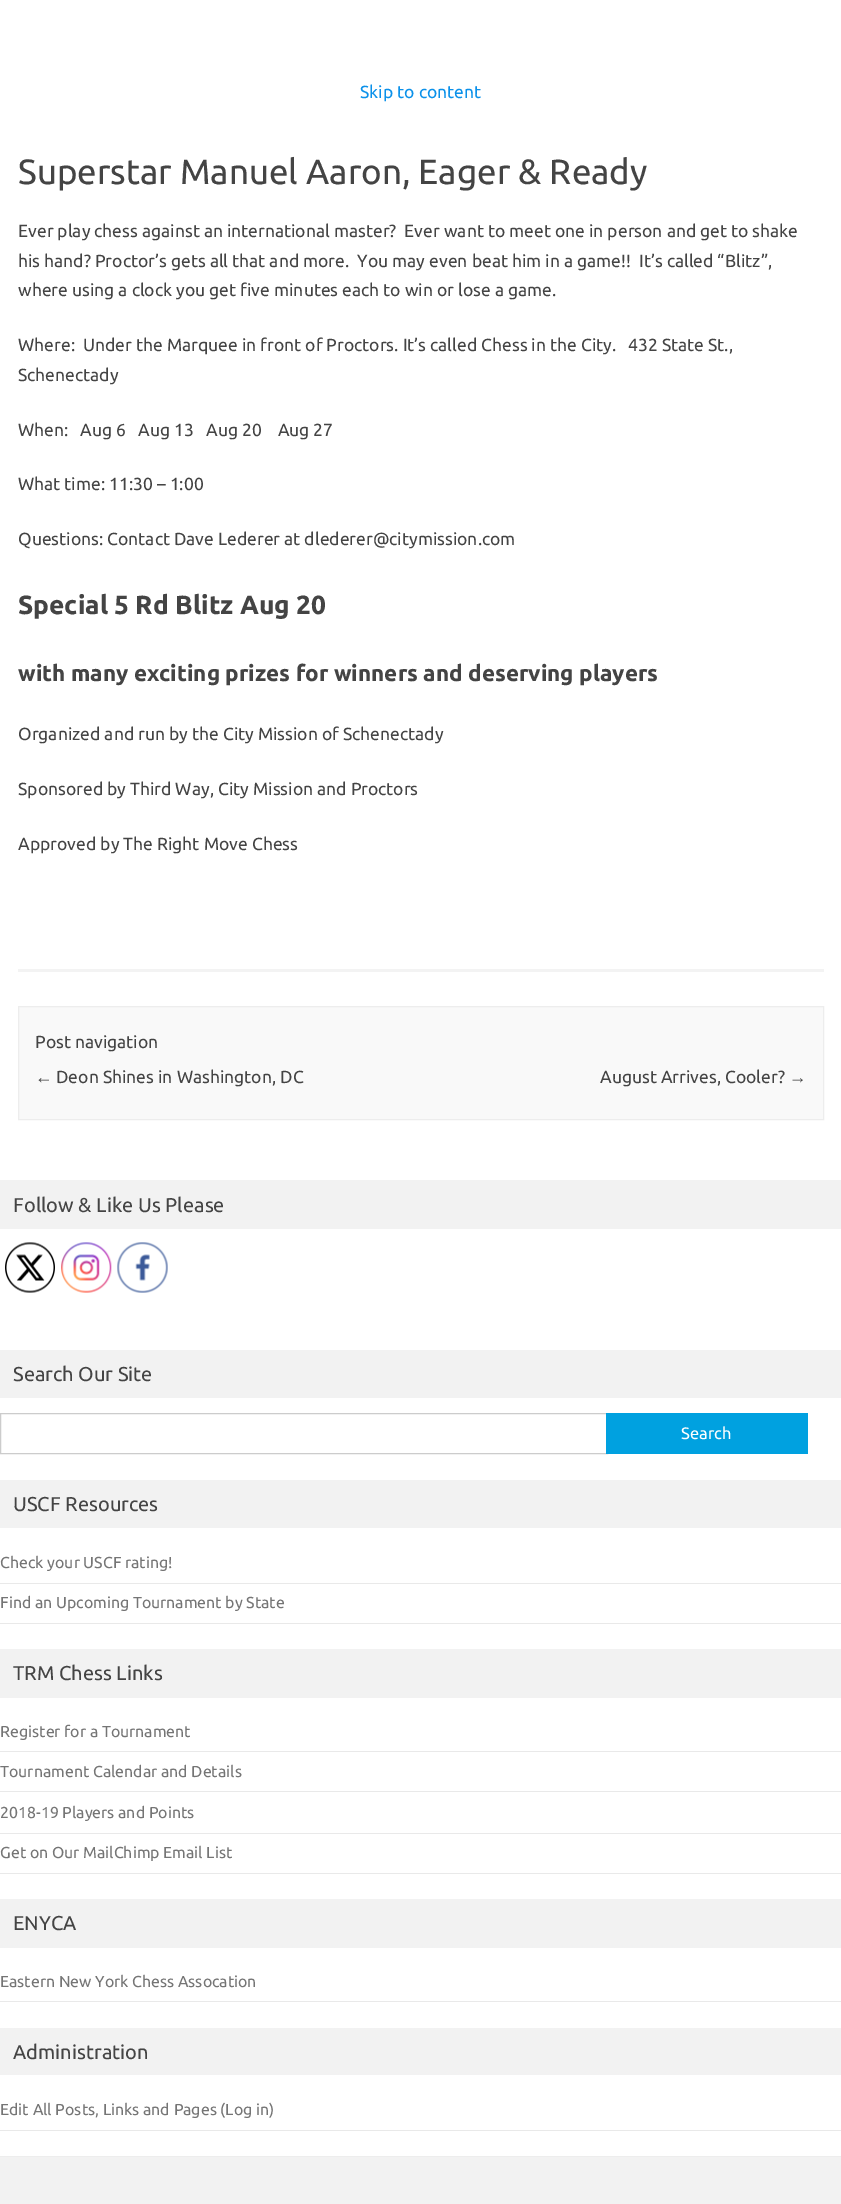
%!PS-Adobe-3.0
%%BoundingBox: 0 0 841 2204
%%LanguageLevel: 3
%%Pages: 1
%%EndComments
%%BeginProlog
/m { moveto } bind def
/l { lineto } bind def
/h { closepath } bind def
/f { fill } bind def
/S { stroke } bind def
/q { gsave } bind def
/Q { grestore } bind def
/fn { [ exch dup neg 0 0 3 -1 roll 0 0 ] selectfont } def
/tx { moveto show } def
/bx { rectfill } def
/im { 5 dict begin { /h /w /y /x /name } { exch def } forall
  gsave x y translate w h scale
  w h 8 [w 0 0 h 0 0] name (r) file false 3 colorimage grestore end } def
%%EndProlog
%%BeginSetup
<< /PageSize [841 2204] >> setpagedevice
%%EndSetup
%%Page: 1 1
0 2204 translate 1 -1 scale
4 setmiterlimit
1 setgray
0 0 841 2204 bx
/Ubuntu-Regular 17.5 fn
0.043 0.569 0.918 setrgbcolor
(Skip to content) 360 98 tx
0.953 setgray
18 969 806 3 bx
/Ubuntu-Regular 35 fn
0.267 setgray
(Superstar Manuel Aaron, Eager & Ready) 18 184 tx
/Ubuntu-Regular 17.5 fn
(Ever play chess against an international master?  Ever want to meet one in person and get to shake) 18 237 tx
(his hand? Proctor’s gets all that and more.  You may even beat him in a game!!  It’s called “Blitz”,) 18 267 tx
(where using a clock you get five minutes each to win or lose a game.) 18 296 tx
(Where:  Under the Marquee in front of Proctors. It’s called Chess in the City.   432 State St.,) 18 351 tx
(Schenectady) 18 381 tx
(When:   Aug 6   Aug 13   Aug 20    Aug 27) 18 436 tx
(What time: 11:30 – 1:00) 18 490 tx
(Questions: Contact Dave Lederer at dlederer@citymission.com) 18 545 tx
/Ubuntu-Bold 26.25 fn
(Special 5 Rd Blitz Aug 20) 18 614 tx
/Ubuntu-Bold 22.5 fn
(with many exciting prizes for winners and deserving players) 18 681 tx
/Ubuntu-Regular 17.5 fn
(Organized and run by the City Mission of Schenectady) 18 740 tx
(Sponsored by Third Way, City Mission and Proctors) 18 795 tx
(Approved by The Right Move Chess) 18 850 tx
0.976 setgray
18.5 1006.5 m 823.5 1006.5 l 823.5 1119.5 l 18.5 1119.5 l h q f Q
0.929 setgray
S
0.267 setgray
(Post navigation) 35 1048 tx
/LiberationSans-Regular 17.5 fn
(←) 35 1083 tx
/Ubuntu-Regular 17.5 fn
(Deon Shines in Washington, DC) 56 1083 tx
(August Arrives, Cooler?) 600 1083 tx
/LiberationSans-Regular 17.5 fn
(→) 789 1083 tx
0.949 setgray
0 1180 841 49 bx
/Ubuntu-Regular 20 fn
0.267 setgray
(Follow & Like Us Please) 13 1212 tx
(image0.raw) 5 1242 50 51 im
(image1.raw) 61 1242 51 51 im
(image2.raw) 117 1242 51 51 im
0.949 setgray
0 1350 841 48 bx
0.267 setgray
(Search Our Site) 13 1381 tx
0.8 setgray
0.5 1413.5 607 40 rectstroke
0 0.631 0.878 setrgbcolor
606 1413 202 41 bx
/Ubuntu-Regular 16.5 fn
1 setgray
(Search) 681 1439 tx
0.949 setgray
0 1480 841 48 bx
/Ubuntu-Regular 20 fn
0.267 setgray
(USCF Resources) 13 1511 tx
0.914 setgray
0 1583 841 1 bx
/Ubuntu-Regular 15.9 fn
0.459 setgray
(Check your USCF rating!) 0 1568 tx
0.914 setgray
0 1623 841 1 bx
0.459 setgray
(Find an Upcoming Tournament by State) 0 1608 tx
0.949 setgray
0 1649 841 49 bx
/Ubuntu-Regular 20 fn
0.267 setgray
(TRM Chess Links) 13 1680 tx
0.914 setgray
0 1751 841 1 bx
/Ubuntu-Regular 15.9 fn
0.459 setgray
(Register for a Tournament) 0 1737 tx
0.914 setgray
0 1791 841 1 bx
0.459 setgray
(Tournament Calendar and Details) 0 1777 tx
0.914 setgray
0 1833 841 1 bx
0.459 setgray
(2018-19 Players and Points) 0 1818 tx
0.914 setgray
0 1873 841 1 bx
0.459 setgray
(Get on Our MailChimp Email List) 0 1858 tx
0.949 setgray
0 1899 841 49 bx
/Ubuntu-Regular 20 fn
0.267 setgray
(ENYCA) 13 1930 tx
0.914 setgray
0 2001 841 1 bx
/Ubuntu-Regular 15.9 fn
0.459 setgray
(Eastern New York Chess Assocation) 0 1987 tx
0.949 setgray
0 2028 841 47 bx
/Ubuntu-Regular 20 fn
0.267 setgray
(Administration) 13 2059 tx
0.914 setgray
0 2130 841 1 bx
/Ubuntu-Regular 15.9 fn
0.459 setgray
(Edit All Posts, Links and Pages \(Log in\)) 0 2115 tx
0.949 setgray
0 2157 841 47 bx
0.929 setgray
0 2156 841 1 bx
showpage
%%EOF
